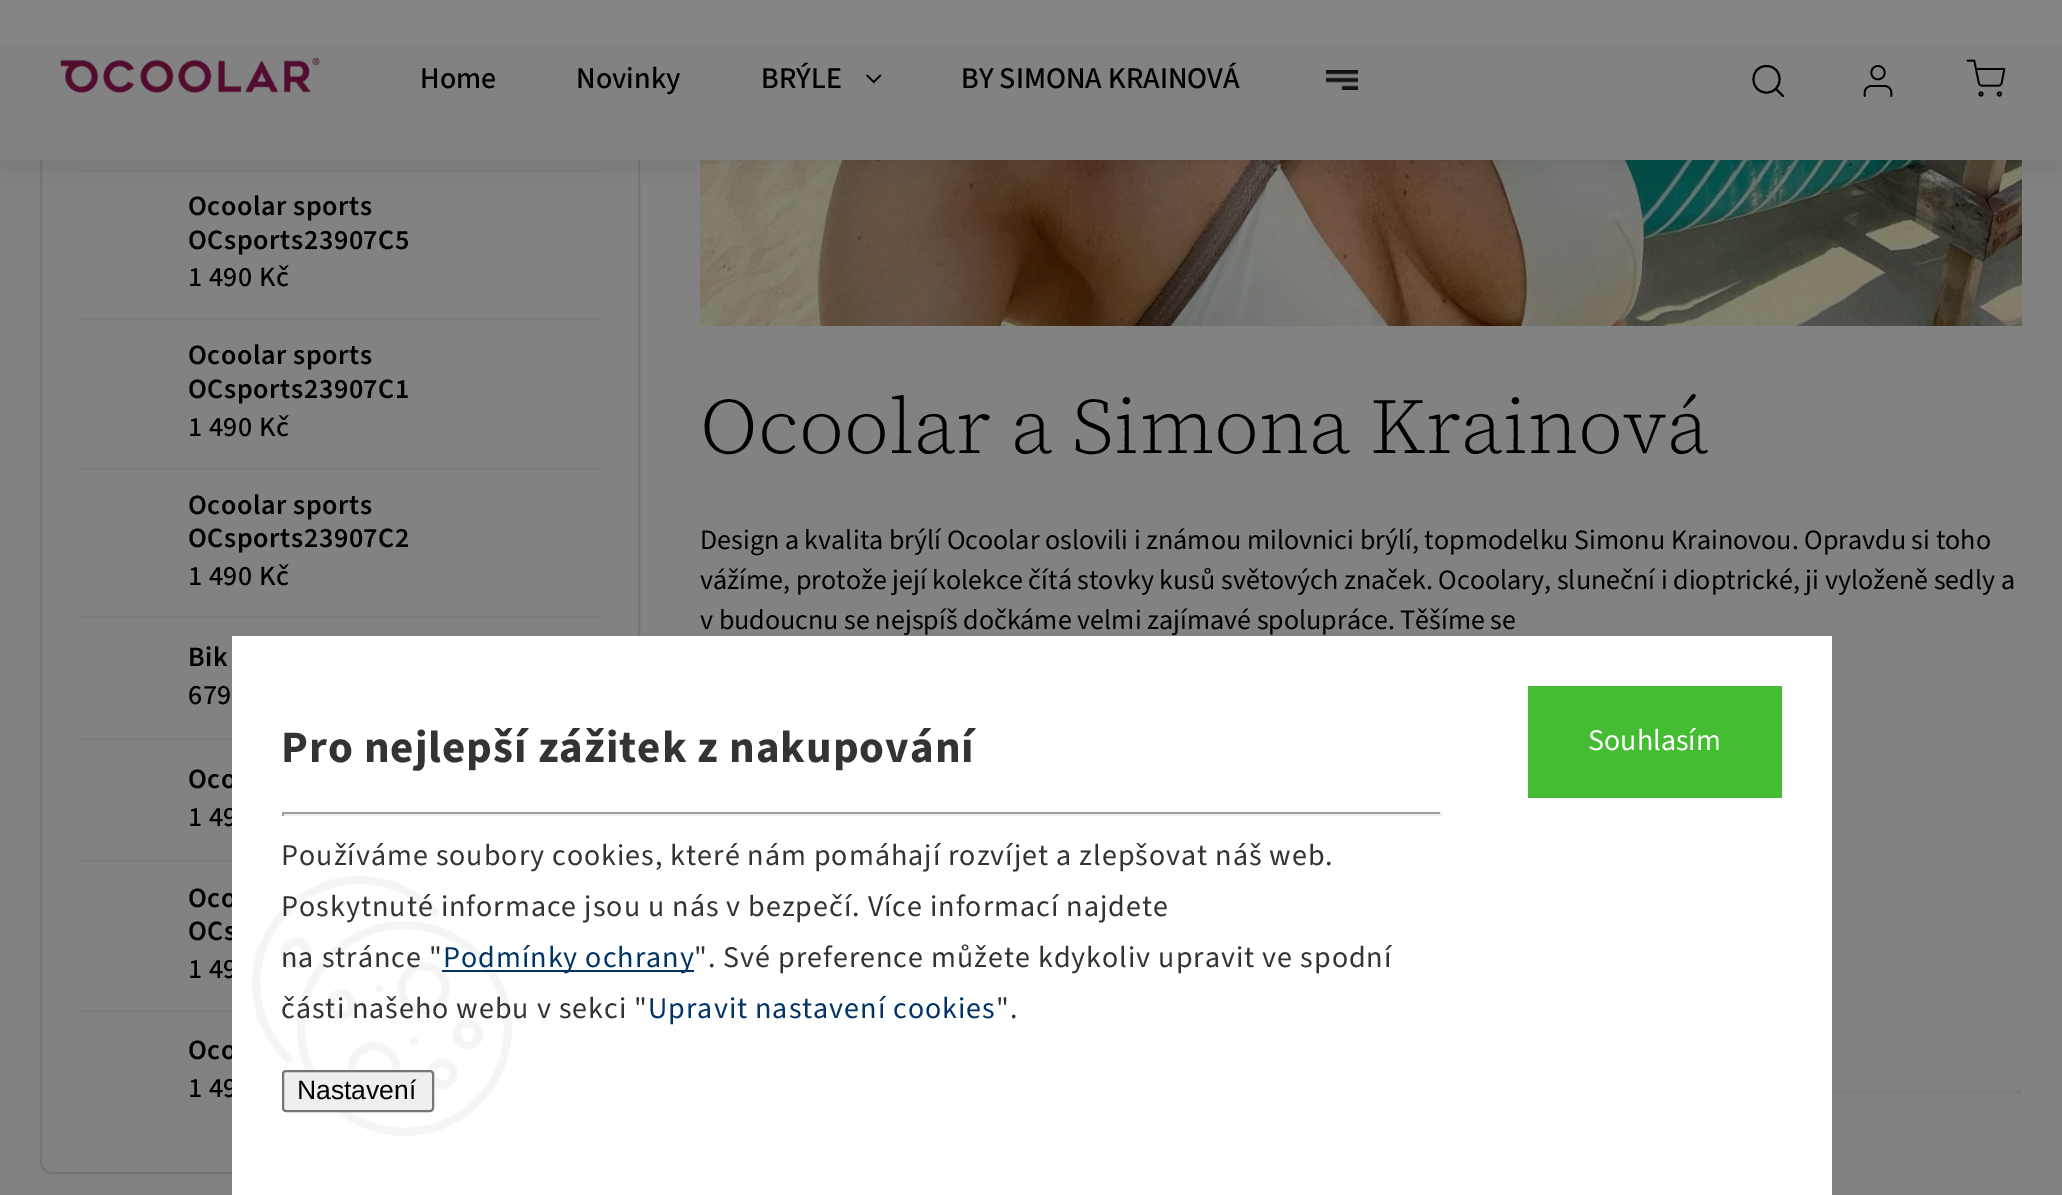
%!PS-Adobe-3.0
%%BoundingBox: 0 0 2062 1195
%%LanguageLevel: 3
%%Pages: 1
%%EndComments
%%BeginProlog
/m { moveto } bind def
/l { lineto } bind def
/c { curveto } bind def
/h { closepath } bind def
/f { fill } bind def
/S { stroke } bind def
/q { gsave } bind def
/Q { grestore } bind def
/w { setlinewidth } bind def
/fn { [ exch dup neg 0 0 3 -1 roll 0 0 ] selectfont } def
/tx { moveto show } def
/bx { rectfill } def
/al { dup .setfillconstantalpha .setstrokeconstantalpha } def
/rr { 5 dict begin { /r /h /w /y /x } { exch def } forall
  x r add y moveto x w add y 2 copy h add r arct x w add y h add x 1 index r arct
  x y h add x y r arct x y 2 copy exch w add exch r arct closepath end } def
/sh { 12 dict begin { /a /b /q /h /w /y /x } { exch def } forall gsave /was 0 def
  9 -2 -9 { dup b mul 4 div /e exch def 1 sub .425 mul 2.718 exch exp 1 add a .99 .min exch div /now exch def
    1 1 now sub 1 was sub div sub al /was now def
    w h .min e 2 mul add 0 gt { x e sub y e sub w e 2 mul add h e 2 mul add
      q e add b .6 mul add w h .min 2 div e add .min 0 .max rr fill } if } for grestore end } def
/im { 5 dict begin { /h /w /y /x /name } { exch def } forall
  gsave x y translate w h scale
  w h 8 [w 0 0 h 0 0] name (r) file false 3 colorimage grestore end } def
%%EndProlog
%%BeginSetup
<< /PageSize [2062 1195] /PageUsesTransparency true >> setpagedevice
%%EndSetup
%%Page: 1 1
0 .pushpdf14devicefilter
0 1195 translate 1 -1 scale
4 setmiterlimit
1 setgray
0 0 2062 1195 bx
0.894 setgray
2 w
41 -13 598 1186 11 rr S
0.949 setgray
82 170 516 2 bx
(image5.raw) 700 160 1322 166 im
0 setgray
0 0 2062 160 0 15 0.1 sh
1 setgray
0 0 2062 160 bx
(image0.raw) 60 57 260 36 im
0 setgray
1 setlinecap
1 setlinejoin
1766.5 92.5 m 1784 92.5 1784 66 1766.5 66 c 1749 66 1749 92.5 1766.5 92.5 c h 1783 96 m 1776 89 l S
(image1.raw) 1863 65 30 32 im
(image2.raw) 1966 59 40 38 im
/SourceSans3-Medium 30 fn
(Home) 420 88 tx
(Novinky) 576 88 tx
(BRÝLE) 761 88 tx
(image3.raw) 866 74 16 10 im
(BY SIMONA KRAINOVÁ) 961 88 tx
(image4.raw) 1326 70 32 20 im
0.949 setgray
82 318 516 2 bx
/SourceSans3-SemiBold 28 fn
0 setgray
188 215 m 0.6 0 (Ocoolar sports) ashow
188 249 m 0.6 0 (OCsports23907C5) ashow
/SourceSans3-Medium 28 fn
188 286 m 0.5 0 (1 490 Kč) ashow
0.949 setgray
82 468 516 2 bx
/SourceSans3-SemiBold 28 fn
0 setgray
188 364 m 0.6 0 (Ocoolar sports) ashow
188 398 m 0.6 0 (OCsports23907C1) ashow
/SourceSans3-Medium 28 fn
188 436 m 0.5 0 (1 490 Kč) ashow
0.949 setgray
82 616 516 2 bx
/SourceSans3-SemiBold 28 fn
0 setgray
188 514 m 0.6 0 (Ocoolar sports) ashow
188 547 m 0.6 0 (OCsports23907C2) ashow
/SourceSans3-Medium 28 fn
188 585 m 0.5 0 (1 490 Kč) ashow
0.949 setgray
82 738 150 2 bx
/SourceSans3-SemiBold 28 fn
0 setgray
188 666 m 0.6 0 (Bik) ashow
/SourceSans3-Medium 28 fn
188 704 m 0.5 0 (679) ashow
0.949 setgray
82 860 150 2 bx
/SourceSans3-SemiBold 28 fn
0 setgray
188 788 m 0.6 0 (Oco) ashow
/SourceSans3-Medium 28 fn
188 826 m 0.5 0 (1 49) ashow
0.949 setgray
82 1010 150 2 bx
/SourceSans3-SemiBold 28 fn
0 setgray
188 907 m 0.6 0 (Oco) ashow
188 940 m 0.6 0 (OCs) ashow
/SourceSans3-Medium 28 fn
188 978 m 0.5 0 (1 49) ashow
/SourceSans3-SemiBold 28 fn
188 1059 m 0.6 0 (Oco) ashow
/SourceSans3-Medium 28 fn
188 1097 m 0.5 0 (1 49) ashow
/SourceSerif4-Light 78.4 fn
(Ocoolar a Simona Krainová) 700 453 tx
/SourceSans3-Regular 28 fn
(Design a kvalita brýlí Ocoolar oslovili i známou milovnici brýlí, topmodelku Simonu Krainovou. Opravdu si toho) 700 549 tx
(vážíme, protože její kolekce čítá stovky kusů světových značek. Ocoolary, sluneční i dioptrické, ji vyloženě sedly a) 700 589 tx
(v budoucnu se nejspíš dočkáme velmi zajímavé spolupráce. Těšíme se) 700 629 tx
0.949 setgray
1832 1090 190 4 bx
0 setgray
-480 -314 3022 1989 0 160 0.5 sh
1 setgray
232 636 1600 559 bx
/SourceSans3-Bold 45 fn
0.2 setgray
281 762 m 1 0 (Pro nejlepší zážitek z nakupování) ashow
0.624 setgray
282 812 1160 2 bx
0.933 setgray
1440 812 2 4 bx
282 814 1160 2 bx
0.624 setgray
282 812 2 4 bx
/SourceSans3-Regular 30 fn
0.2 setgray
281 865 m 1 0 (Používáme soubory cookies, které nám pomáhají rozvíjet a zlepšovat náš web.) ashow
(image6.raw) 252 876 260 260 im
281 916 m 1 0 (Poskytnuté informace jsou u nás v bezpečí. Více informací najdete) ashow
281 967 m 1 0 (na stránce ") ashow
0 0.2 0.4 setrgbcolor
442 970 252 2 bx
443 967 m 1 0 (Podmínky ochrany) ashow
0.2 setgray
694 967 m 1 0 (". Své preference můžete kdykoliv upravit ve spodní) ashow
281 1018 m 1 0 (části našeho webu v sekci ") ashow
0 0.2 0.4 setrgbcolor
648 1018 m 1 0 (Upravit nastavení cookies) ashow
0.2 setgray
996 1018 m 1 0 (".) ashow
0.937 setgray
283 1071 150 40 3 rr q f Q
0.463 setgray
0 setlinecap
0 setlinejoin
S
/LiberationSans-Regular 26.5 fn
0 setgray
(Nastavení) 297 1099 tx
0.267 0.741 0.196 setrgbcolor
1528 686 254 112 bx
/SourceSans3-Regular 30 fn
1 setgray
(Souhlasím) 1588 750 tx
.poppdf14devicefilter showpage
%%EOF
